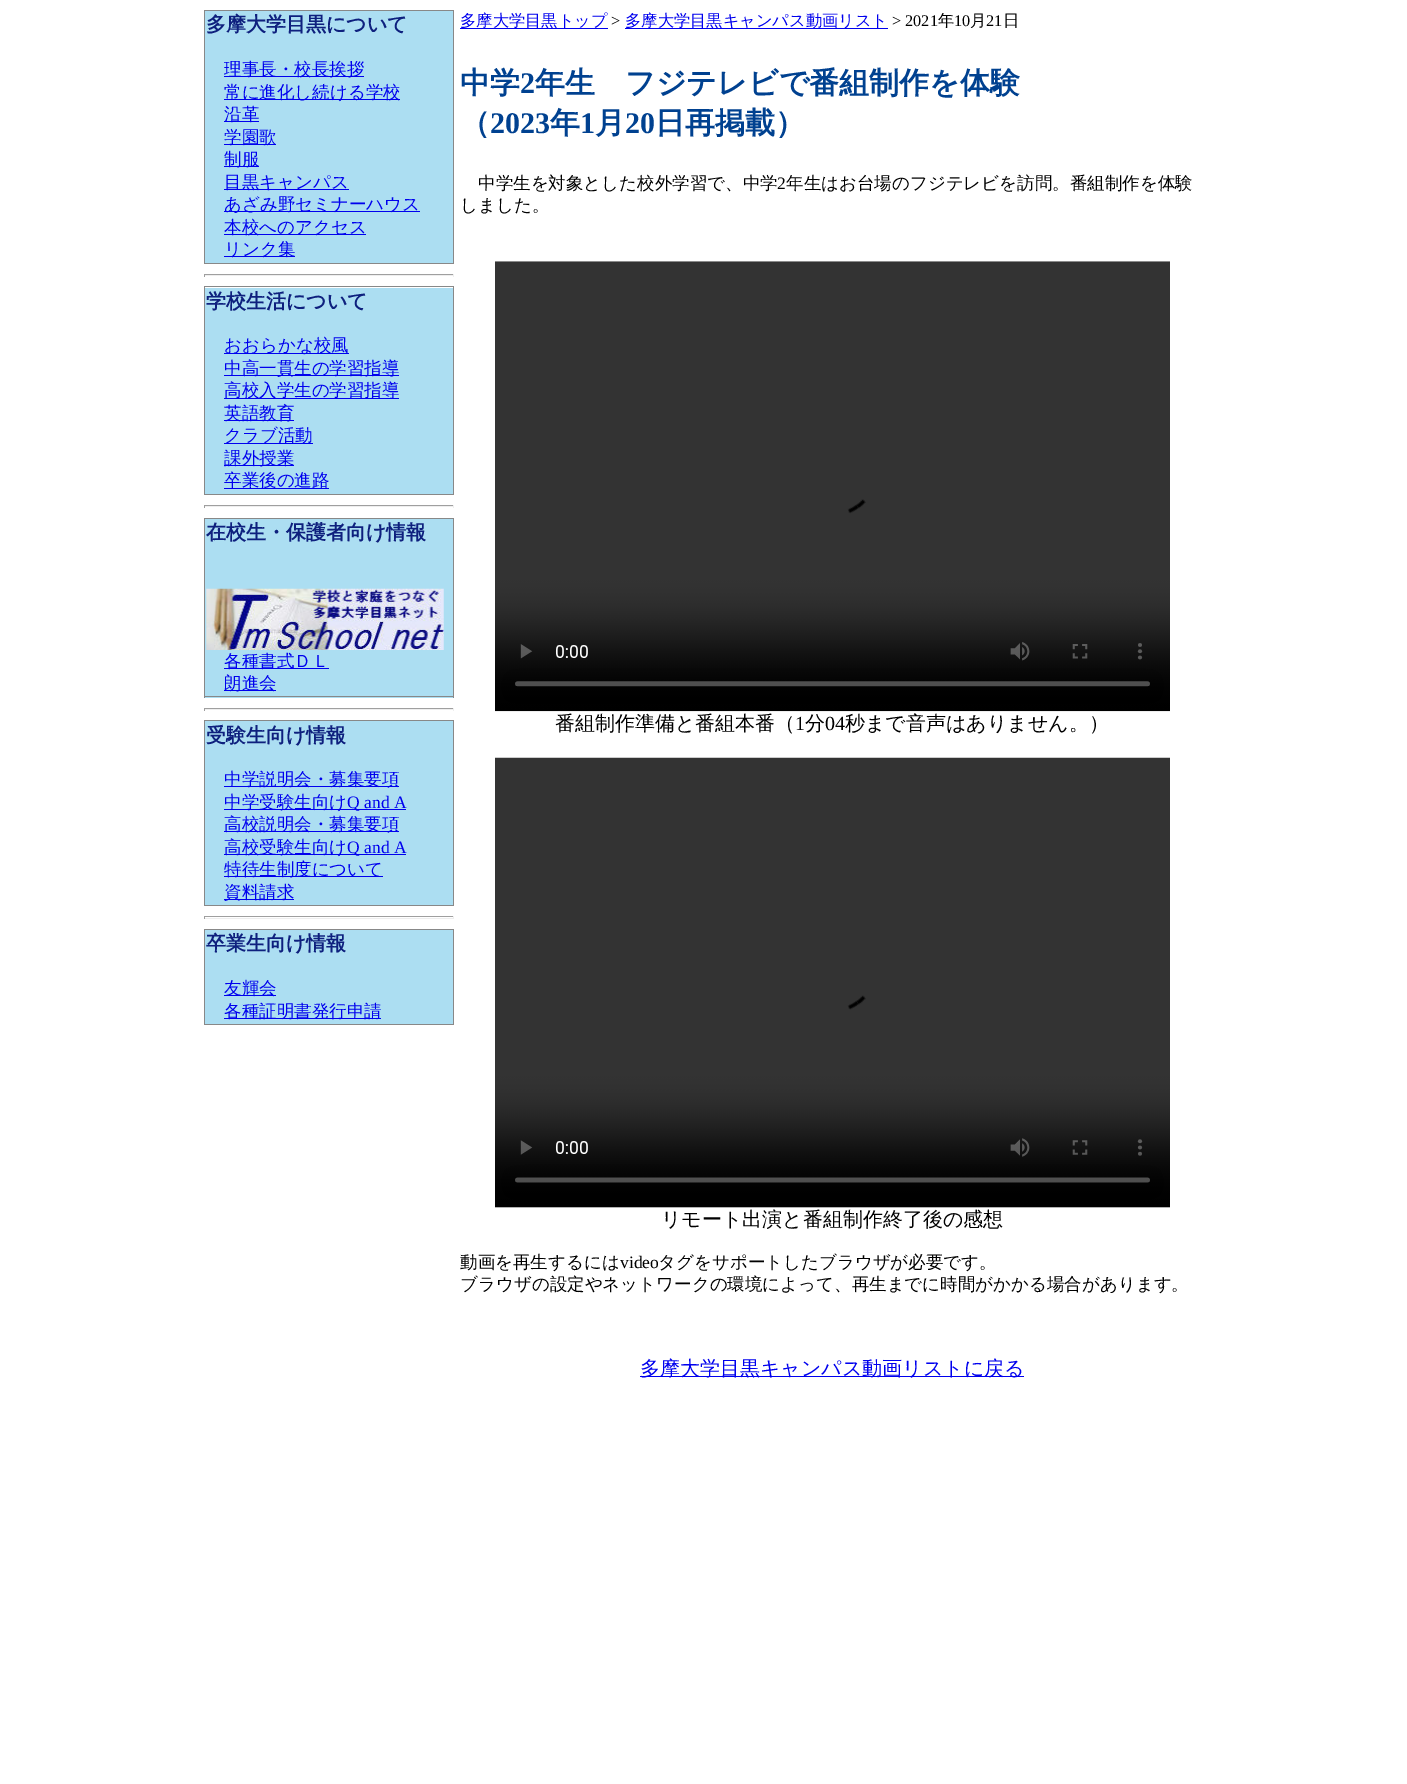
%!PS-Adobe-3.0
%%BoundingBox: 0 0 1407 1784
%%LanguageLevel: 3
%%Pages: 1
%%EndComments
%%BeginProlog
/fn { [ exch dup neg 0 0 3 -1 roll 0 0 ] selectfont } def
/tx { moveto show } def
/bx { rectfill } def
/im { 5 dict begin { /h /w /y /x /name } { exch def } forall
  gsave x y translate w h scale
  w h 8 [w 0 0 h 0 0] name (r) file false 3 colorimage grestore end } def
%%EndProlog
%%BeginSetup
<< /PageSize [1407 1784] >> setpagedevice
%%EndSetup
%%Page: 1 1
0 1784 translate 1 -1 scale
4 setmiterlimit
1 setgray
0 0 1407 1784 bx
0.533 setgray
204 10 250 1 bx
453 10 1 254 bx
204 263 250 1 bx
204 10 1 254 bx
0.675 0.871 0.949 setrgbcolor
205 11 248 252 bx
/WenQuanYiZenHei-Bold 20 fn
0.055 0.125 0.494 setrgbcolor
(多摩大学目黒について) 206 31 tx
0 0 0.933 setrgbcolor
224 76 140 1 bx
/WenQuanYiZenHei-Medium 17.5 fn
(理事長・校長挨拶) 224 75 tx
224 99 176 1 bx
(常に進化し続ける学校) 224 98 tx
224 121 35 1 bx
(沿革) 224 120 tx
224 144 52 1 bx
(学園歌) 224 143 tx
224 166 35 1 bx
(制服) 224 165 tx
224 189 125 1 bx
(目黒キャンパス) 224 188 tx
224 211 196 1 bx
(あざみ野セミナーハウス) 224 210 tx
224 234 142 1 bx
(本校へのアクセス) 224 233 tx
224 256 71 1 bx
(リンク集) 224 255 tx
0.624 setgray
204 274 250 1 bx
0.933 setgray
453 274 1 3 bx
204 275 250 1 bx
0.624 setgray
204 274 1 3 bx
0.533 setgray
204 286 250 1 bx
453 286 1 209 bx
204 494 250 1 bx
204 286 1 209 bx
0.675 0.871 0.949 setrgbcolor
205 288 248 206 bx
/WenQuanYiZenHei-Bold 20 fn
0.055 0.125 0.494 setrgbcolor
(学校生活について) 206 308 tx
0 0 0.933 setrgbcolor
224 353 125 1 bx
/WenQuanYiZenHei-Medium 17.5 fn
(おおらかな校風) 224 351 tx
224 375 175 1 bx
(中高一貫生の学習指導) 224 374 tx
224 398 175 1 bx
(高校入学生の学習指導) 224 396 tx
224 420 70 1 bx
(英語教育) 224 419 tx
224 443 89 1 bx
(クラブ活動) 224 441 tx
224 465 70 1 bx
(課外授業) 224 464 tx
224 488 105 1 bx
(卒業後の進路) 224 486 tx
0.624 setgray
204 505 250 1 bx
0.933 setgray
453 505 1 3 bx
204 506 250 1 bx
0.624 setgray
204 505 1 3 bx
0.533 setgray
204 518 250 1 bx
453 518 1 180 bx
0.675 0.871 0.949 setrgbcolor
205 519 248 179 bx
0.533 setgray
204 696 250 1 bx
204 518 1 180 bx
/WenQuanYiZenHei-Bold 20 fn
0.055 0.125 0.494 setrgbcolor
(在校生・保護者向け情報) 206 539 tx
(image0.raw) 206 588 238 62 im
0 0 0.933 setrgbcolor
224 668 105 1 bx
/WenQuanYiZenHei-Medium 17.5 fn
(各種書式ＤＬ) 224 667 tx
224 690 52 1 bx
(朗進会) 224 689 tx
0.624 setgray
204 708 250 1 bx
0.933 setgray
453 708 1 3 bx
204 709 250 1 bx
0.624 setgray
204 708 1 3 bx
0.533 setgray
204 720 250 1 bx
453 720 1 186 bx
204 905 250 1 bx
204 720 1 186 bx
0.675 0.871 0.949 setrgbcolor
205 721 248 184 bx
/WenQuanYiZenHei-Bold 20 fn
0.055 0.125 0.494 setrgbcolor
(受験生向け情報) 206 742 tx
0 0 0.933 setrgbcolor
224 786 175 1 bx
/WenQuanYiZenHei-Medium 17.5 fn
(中学説明会・募集要項) 224 785 tx
224 809 182 1 bx
(中学受験生向け) 224 808 tx
/LiberationSerif-Regular 17.5 fn
(Q and A) 347 808 tx
224 831 175 1 bx
/WenQuanYiZenHei-Medium 17.5 fn
(高校説明会・募集要項) 224 830 tx
224 854 182 1 bx
(高校受験生向け) 224 853 tx
/LiberationSerif-Regular 17.5 fn
(Q and A) 347 853 tx
224 876 159 1 bx
/WenQuanYiZenHei-Medium 17.5 fn
(特待生制度について) 224 875 tx
224 899 70 1 bx
(資料請求) 224 898 tx
0.624 setgray
204 916 250 1 bx
0.933 setgray
453 916 1 3 bx
204 918 250 1 bx
0.624 setgray
204 916 1 3 bx
0.533 setgray
204 929 250 1 bx
453 929 1 96 bx
204 1024 250 1 bx
204 929 1 96 bx
0.675 0.871 0.949 setrgbcolor
205 930 248 94 bx
/WenQuanYiZenHei-Bold 20 fn
0.055 0.125 0.494 setrgbcolor
(卒業生向け情報) 206 950 tx
0 0 0.933 setrgbcolor
224 995 52 1 bx
/WenQuanYiZenHei-Medium 17.5 fn
(友輝会) 224 994 tx
224 1018 157 1 bx
(各種証明書発行申請) 224 1017 tx
460 28 148 1 bx
/WenQuanYiZenHei-Medium 16.25 fn
(多摩大学目黒トップ) 460 26 tx
/LiberationSerif-Regular 16.25 fn
0 setgray
(>) 611 26 tx
0 0 0.933 setrgbcolor
625 28 263 1 bx
/WenQuanYiZenHei-Medium 16.25 fn
(多摩大学目黒キャンパス動画リスト) 625 26 tx
/LiberationSerif-Regular 16.25 fn
0 setgray
(> 2021) 892 26 tx
/WenQuanYiZenHei-Medium 16.25 fn
(年) 938 26 tx
/LiberationSerif-Regular 16.25 fn
(10) 954 26 tx
/WenQuanYiZenHei-Medium 16.25 fn
(月) 970 26 tx
/LiberationSerif-Regular 16.25 fn
(21) 986 26 tx
/WenQuanYiZenHei-Medium 16.25 fn
(日) 1003 26 tx
/WenQuanYiZenHei-Bold 30 fn
0 0.255 0.565 setrgbcolor
(中学) 460 93 tx
/LiberationSerif-Bold 30 fn
(2) 520 93 tx
/WenQuanYiZenHei-Bold 30 fn
(年生　フジテレビで番組制作を体験) 535 93 tx
(（) 460 133 tx
/LiberationSerif-Bold 30 fn
(2023) 490 133 tx
/WenQuanYiZenHei-Bold 30 fn
(年) 550 133 tx
/LiberationSerif-Bold 30 fn
(1) 580 133 tx
/WenQuanYiZenHei-Bold 30 fn
(月) 595 133 tx
/LiberationSerif-Bold 30 fn
(20) 625 133 tx
/WenQuanYiZenHei-Bold 30 fn
(日再掲載）) 655 133 tx
/WenQuanYiZenHei-Medium 17.5 fn
0 setgray
(中学生を対象とした校外学習で、中学) 478 189 tx
/LiberationSerif-Regular 17.5 fn
(2) 777 189 tx
/WenQuanYiZenHei-Medium 17.5 fn
(年生はお台場のフジテレビを訪問。番組制作を体験) 786 189 tx
(しました。) 460 211 tx
(image1.raw) 495 261 675 451 im
/WenQuanYiZenHei-Medium 20 fn
(番組制作準備と番組本番（) 555 730 tx
/LiberationSerif-Regular 20 fn
(1) 795 730 tx
/WenQuanYiZenHei-Medium 20 fn
(分) 805 730 tx
/LiberationSerif-Regular 20 fn
(04) 825 730 tx
/WenQuanYiZenHei-Medium 20 fn
(秒まで音声はありません。）) 845 730 tx
(image2.raw) 495 757 675 451 im
(リモート出演と番組制作終了後の感想) 661 1226 tx
/WenQuanYiZenHei-Medium 17.5 fn
(動画を再生するには) 460 1268 tx
/LiberationSerif-Regular 17.5 fn
(video) 620 1268 tx
/WenQuanYiZenHei-Medium 17.5 fn
(タグをサポートしたブラウザが必要です。) 658 1268 tx
(ブラウザの設定やネットワークの環境によって、再生までに時間がかかる場合があります。) 460 1290 tx
0 0 0.933 setrgbcolor
640 1376 384 1 bx
/WenQuanYiZenHei-Medium 20 fn
(多摩大学目黒キャンパス動画リストに戻る) 640 1375 tx
showpage
%%EOF
